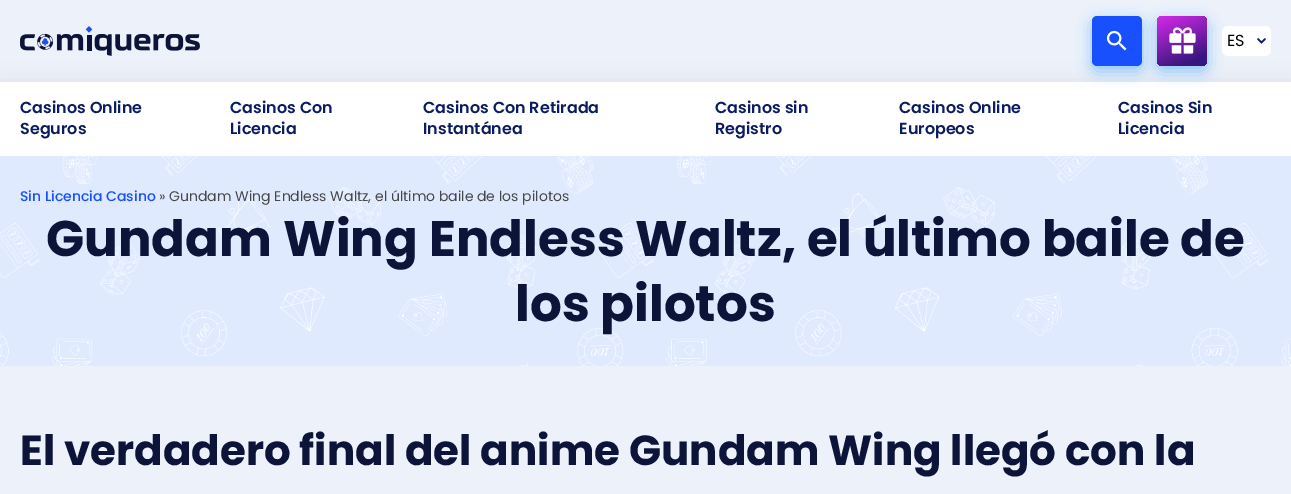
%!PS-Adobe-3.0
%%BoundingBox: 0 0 1291 494
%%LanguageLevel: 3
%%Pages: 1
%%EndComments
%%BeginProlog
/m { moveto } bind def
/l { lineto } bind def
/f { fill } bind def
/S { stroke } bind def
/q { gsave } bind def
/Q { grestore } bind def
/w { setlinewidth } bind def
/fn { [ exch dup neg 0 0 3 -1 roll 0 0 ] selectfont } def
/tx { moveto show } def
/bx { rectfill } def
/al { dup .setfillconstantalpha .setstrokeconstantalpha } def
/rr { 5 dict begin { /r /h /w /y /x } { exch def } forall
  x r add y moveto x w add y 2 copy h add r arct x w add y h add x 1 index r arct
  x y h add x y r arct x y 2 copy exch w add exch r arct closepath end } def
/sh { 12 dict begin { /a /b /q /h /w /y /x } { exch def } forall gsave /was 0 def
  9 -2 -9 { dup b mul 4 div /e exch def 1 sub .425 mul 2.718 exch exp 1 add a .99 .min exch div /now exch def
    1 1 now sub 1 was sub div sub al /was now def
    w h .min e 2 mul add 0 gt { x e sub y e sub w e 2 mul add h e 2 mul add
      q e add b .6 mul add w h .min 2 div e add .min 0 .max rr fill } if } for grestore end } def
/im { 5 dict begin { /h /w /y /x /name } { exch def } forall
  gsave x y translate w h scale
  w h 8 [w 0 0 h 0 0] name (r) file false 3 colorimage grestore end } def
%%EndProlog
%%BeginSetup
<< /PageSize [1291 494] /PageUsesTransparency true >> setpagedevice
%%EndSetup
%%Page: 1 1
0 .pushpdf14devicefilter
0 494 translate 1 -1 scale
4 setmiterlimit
0.925 0.945 0.98 setrgbcolor
0 0 1291 494 bx
0 setgray
0 86 1291 74 0 11 0.1 sh
(image0.raw) 20 26 180 30 im
1 setgray
0 82 1291 74 bx
0 0.518 0.984 setrgbcolor
1092 21 50 50 5 7.5 0.4 sh
0.094 0.314 0.996 setrgbcolor
1092 16 50 50 5 rr f
(image1.raw) 1106 30 21 21 im
0 0.518 0.984 setrgbcolor
1157 21 50 50 5 7.5 0.4 sh
q 1157 16 50 50 5 rr clip newpath
<< /ShadingType 2 /ColorSpace /DeviceRGB /Coords [1170 11 1194 71] /Extend [true true] /Function << /FunctionType 3 /Domain [0 1] /Functions [<< /FunctionType 2 /Domain [0 1] /C0 [0.816 0.161 0.898] /C1 [0.816 0.161 0.898] /N 1 >> << /FunctionType 2 /Domain [0 1] /C0 [0.816 0.161 0.898] /C1 [0.212 0.09 0.498] /N 1 >> << /FunctionType 2 /Domain [0 1] /C0 [0.212 0.09 0.498] /C1 [0.212 0.09 0.498] /N 1 >>] /Bounds [0.03 0.85] /Encode [0 1 0 1 0 1] >> >> shfill Q
(image2.raw) 1169 27 27 27 im
1 setgray
1222 26 49 30 6 rr f
/Poppins-Regular 16 fn
0 setgray
(ES) 1227 46 tx
0.039 0.114 0.384 setrgbcolor
1.5 w
1 setlinecap
1258 39 m 1261.5 42.5 l 1265 39 l S
/Poppins-SemiBold 16 fn
(Casinos Online) 20 113 tx
(Seguros) 20 134 tx
(Casinos Con) 230 113 tx
(Licencia) 230 134 tx
(Casinos Con Retirada) 423 113 tx
(Instantánea) 423 134 tx
(Casinos sin) 715 113 tx
(Registro) 715 134 tx
(Casinos Online) 899 113 tx
(Europeos) 899 134 tx
(Casinos Sin) 1118 113 tx
(Licencia) 1118 134 tx
(image3.raw) 0 156 1291 210 im
/Poppins-Medium 14 fn
0.094 0.314 0.996 setrgbcolor
(Sin Licencia Casino) 20 201 tx
/Poppins-Regular 14 fn
0.278 setgray
(» Gundam Wing Endless Waltz, el último baile de los pilotos) 159 201 tx
/Poppins-Bold 50 fn
0.047 0.082 0.224 setrgbcolor
(Gundam Wing Endless Waltz, el último baile de) 46 256 tx
(los pilotos) 515 321 tx
/Poppins-Bold 42 fn
(El verdadero final del anime Gundam Wing llegó con la) 20 465 tx
.poppdf14devicefilter showpage
%%EOF
